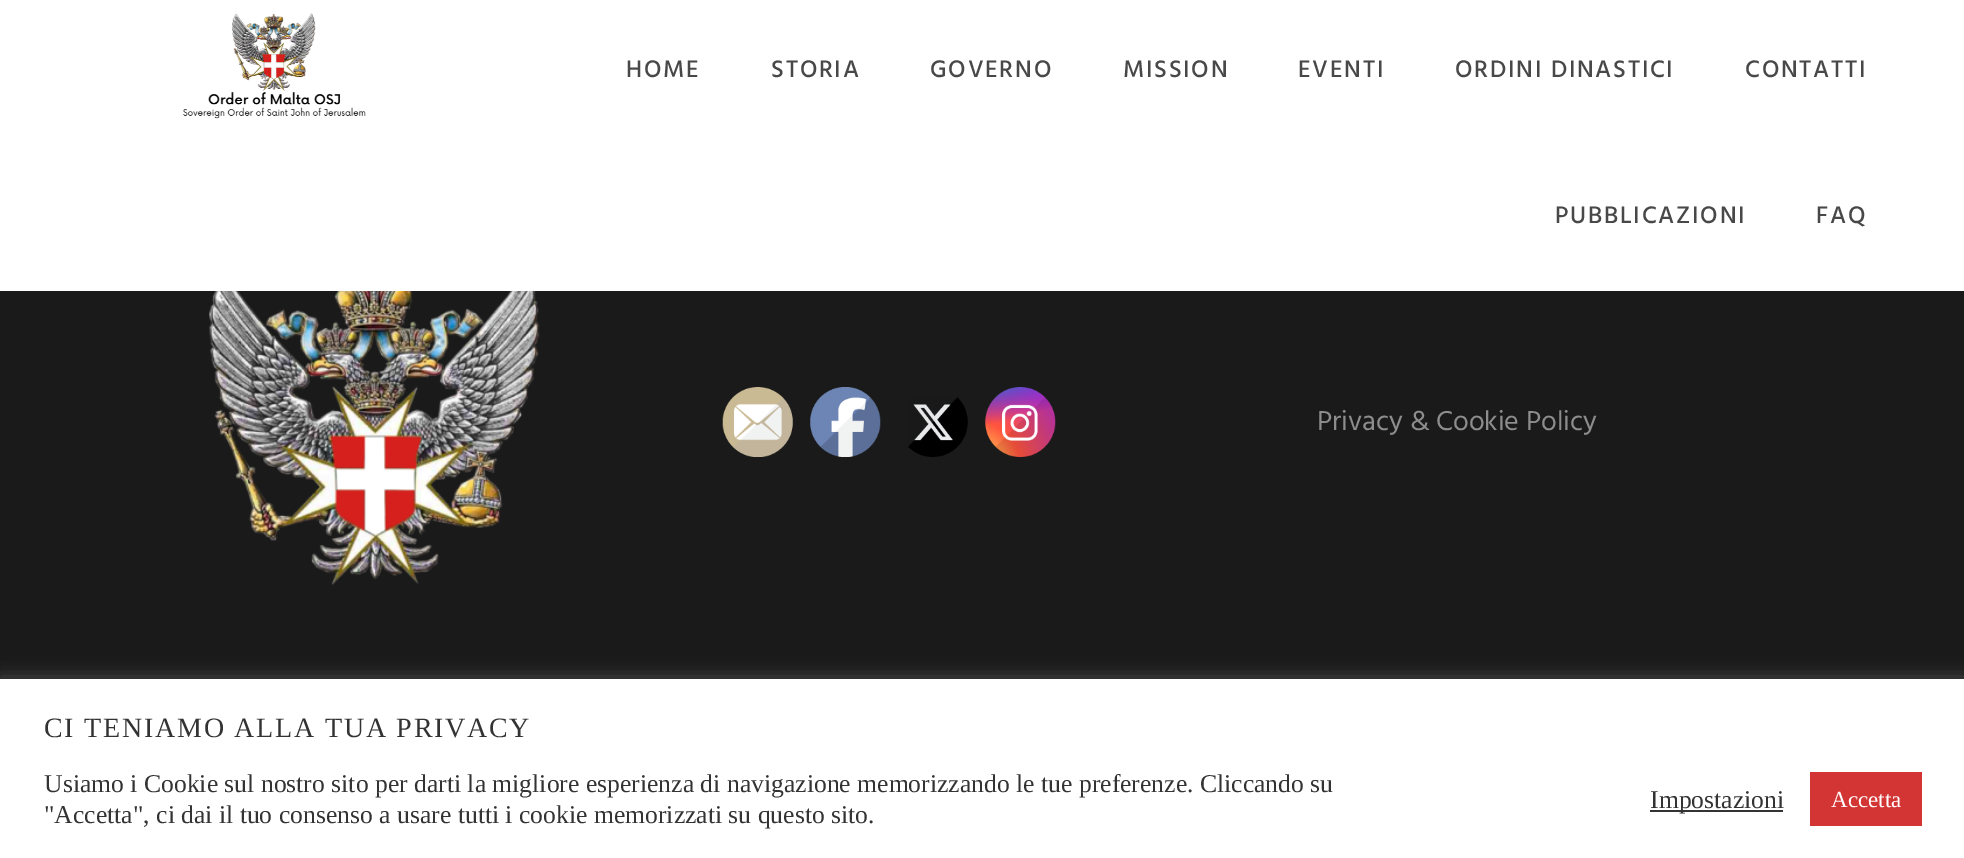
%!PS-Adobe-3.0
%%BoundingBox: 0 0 1964 858
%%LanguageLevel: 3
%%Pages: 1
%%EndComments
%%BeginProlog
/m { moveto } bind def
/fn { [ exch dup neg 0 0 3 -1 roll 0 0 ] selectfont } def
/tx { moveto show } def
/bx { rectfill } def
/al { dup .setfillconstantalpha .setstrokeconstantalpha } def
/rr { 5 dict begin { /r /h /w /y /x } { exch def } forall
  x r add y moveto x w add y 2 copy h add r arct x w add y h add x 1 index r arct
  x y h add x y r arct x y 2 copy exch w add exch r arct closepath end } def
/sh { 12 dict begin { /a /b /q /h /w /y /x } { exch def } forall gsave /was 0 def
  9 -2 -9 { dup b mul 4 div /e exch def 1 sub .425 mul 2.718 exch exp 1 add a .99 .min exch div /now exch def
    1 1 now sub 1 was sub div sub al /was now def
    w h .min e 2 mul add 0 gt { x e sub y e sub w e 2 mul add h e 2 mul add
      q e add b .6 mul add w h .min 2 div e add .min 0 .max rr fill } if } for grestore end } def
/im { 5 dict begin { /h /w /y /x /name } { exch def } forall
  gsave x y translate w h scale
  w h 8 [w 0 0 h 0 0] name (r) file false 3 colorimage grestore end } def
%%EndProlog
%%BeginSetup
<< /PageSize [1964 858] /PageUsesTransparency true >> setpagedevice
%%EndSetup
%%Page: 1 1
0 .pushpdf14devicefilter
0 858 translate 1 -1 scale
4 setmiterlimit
0.102 setgray
0 0 1964 858 bx
1 setgray
0 0 1964 291 bx
(image0.raw) 183 13 183 106 im
/Hind-Medium 24.5 fn
0.282 setgray
626 77 m 1.75 0 (HOME) ashow
771 77 m 1.75 0 (STORIA) ashow
930 77 m 1.75 0 (GOVERNO) ashow
1123 77 m 1.75 0 (MISSION) ashow
1298 77 m 1.75 0 (EVENTI) ashow
1455 77 m 1.75 0 (ORDINI DINASTICI) ashow
1745 77 m 1.75 0 (CONTATTI) ashow
1555 223 m 1.75 0 (PUBBLICAZIONI) ashow
1816 223 m 1.75 0 (FAQ) ashow
(image1.raw) 209 291 331 294 im
(image2.raw) 722 387 71 70 im
(image3.raw) 810 387 71 70 im
(image4.raw) 908 397 60 60 im
(image5.raw) 985 387 71 70 im
/Hind-Regular 28 fn
0.553 setgray
(Privacy & Cookie Policy) 1317 430 tx
0.675 0.671 0.671 setrgbcolor
0 677 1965 181 0 9 0.3 sh
1 setgray
0 679 1964 179 bx
/LiberationSerif-Regular 28 fn
0.2 setgray
44 737 m 1.75 0 (CI TENIAMO ALLA TUA PRIVACY) ashow
/LiberationSerif-Regular 25.67 fn
(Usiamo i Cookie sul nostro sito per darti la migliore esperienza di navigazione memorizzando le tue preferenze. Cliccando su) 44 792 tx
("Accetta", ci dai il tuo consenso a usare tutti i cookie memorizzati su questo sito.) 44 823 tx
1650 810 133 2 bx
(Impostazioni) 1650 808 tx
0.827 0.204 0.204 setrgbcolor
1810 772 112 54 bx
/LiberationSerif-Regular 23 fn
1 setgray
(Accetta) 1831 807 tx
.poppdf14devicefilter showpage
%%EOF
